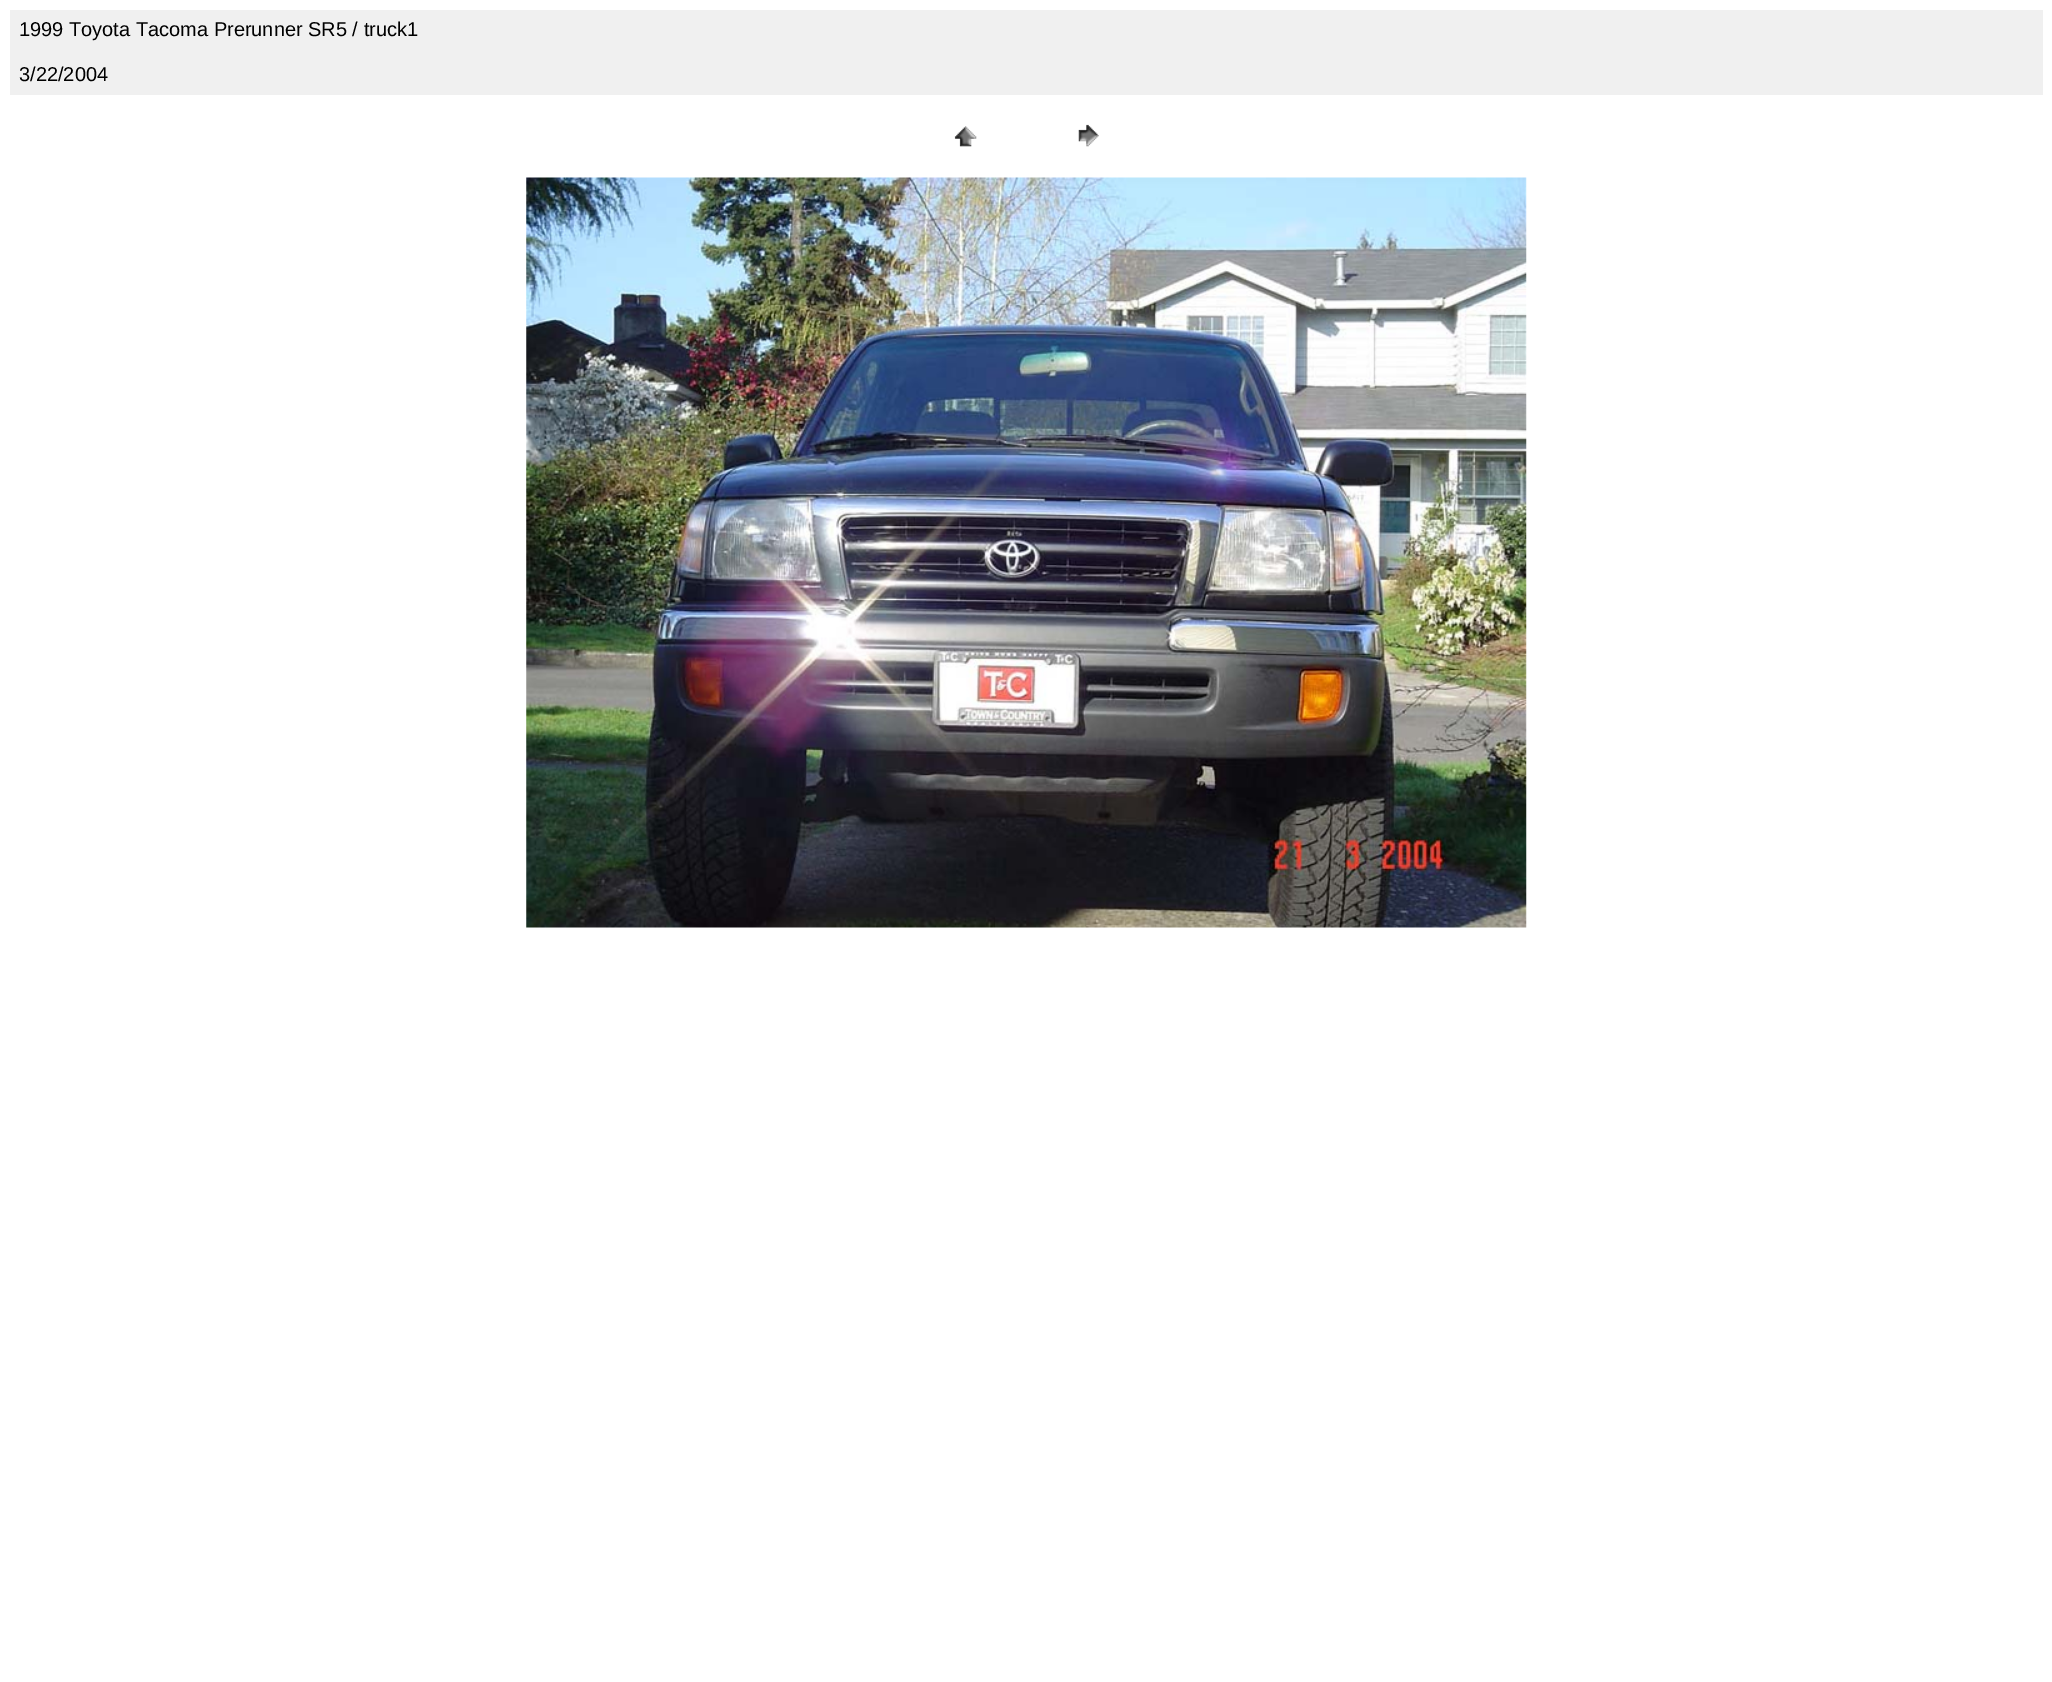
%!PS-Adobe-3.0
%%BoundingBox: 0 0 2052 1682
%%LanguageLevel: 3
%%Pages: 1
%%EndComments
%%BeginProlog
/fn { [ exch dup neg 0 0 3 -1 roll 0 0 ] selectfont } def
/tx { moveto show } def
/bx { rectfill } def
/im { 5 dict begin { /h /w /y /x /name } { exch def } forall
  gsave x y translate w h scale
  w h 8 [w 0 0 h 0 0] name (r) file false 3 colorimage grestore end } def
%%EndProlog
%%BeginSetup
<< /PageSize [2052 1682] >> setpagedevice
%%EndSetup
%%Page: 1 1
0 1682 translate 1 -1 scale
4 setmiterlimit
1 setgray
0 0 2052 1682 bx
0.941 setgray
10 10 2033 85 bx
/LiberationSans-Regular 20 fn
0 setgray
(1999 Toyota Tacoma Prerunner SR5 / truck1) 19 36 tx
(3/22/2004) 19 81 tx
(image0.raw) 954 126 23 21 im
(image1.raw) 1078 124 21 23 im
(image2.raw) 526 177 1001 751 im
showpage
%%EOF
